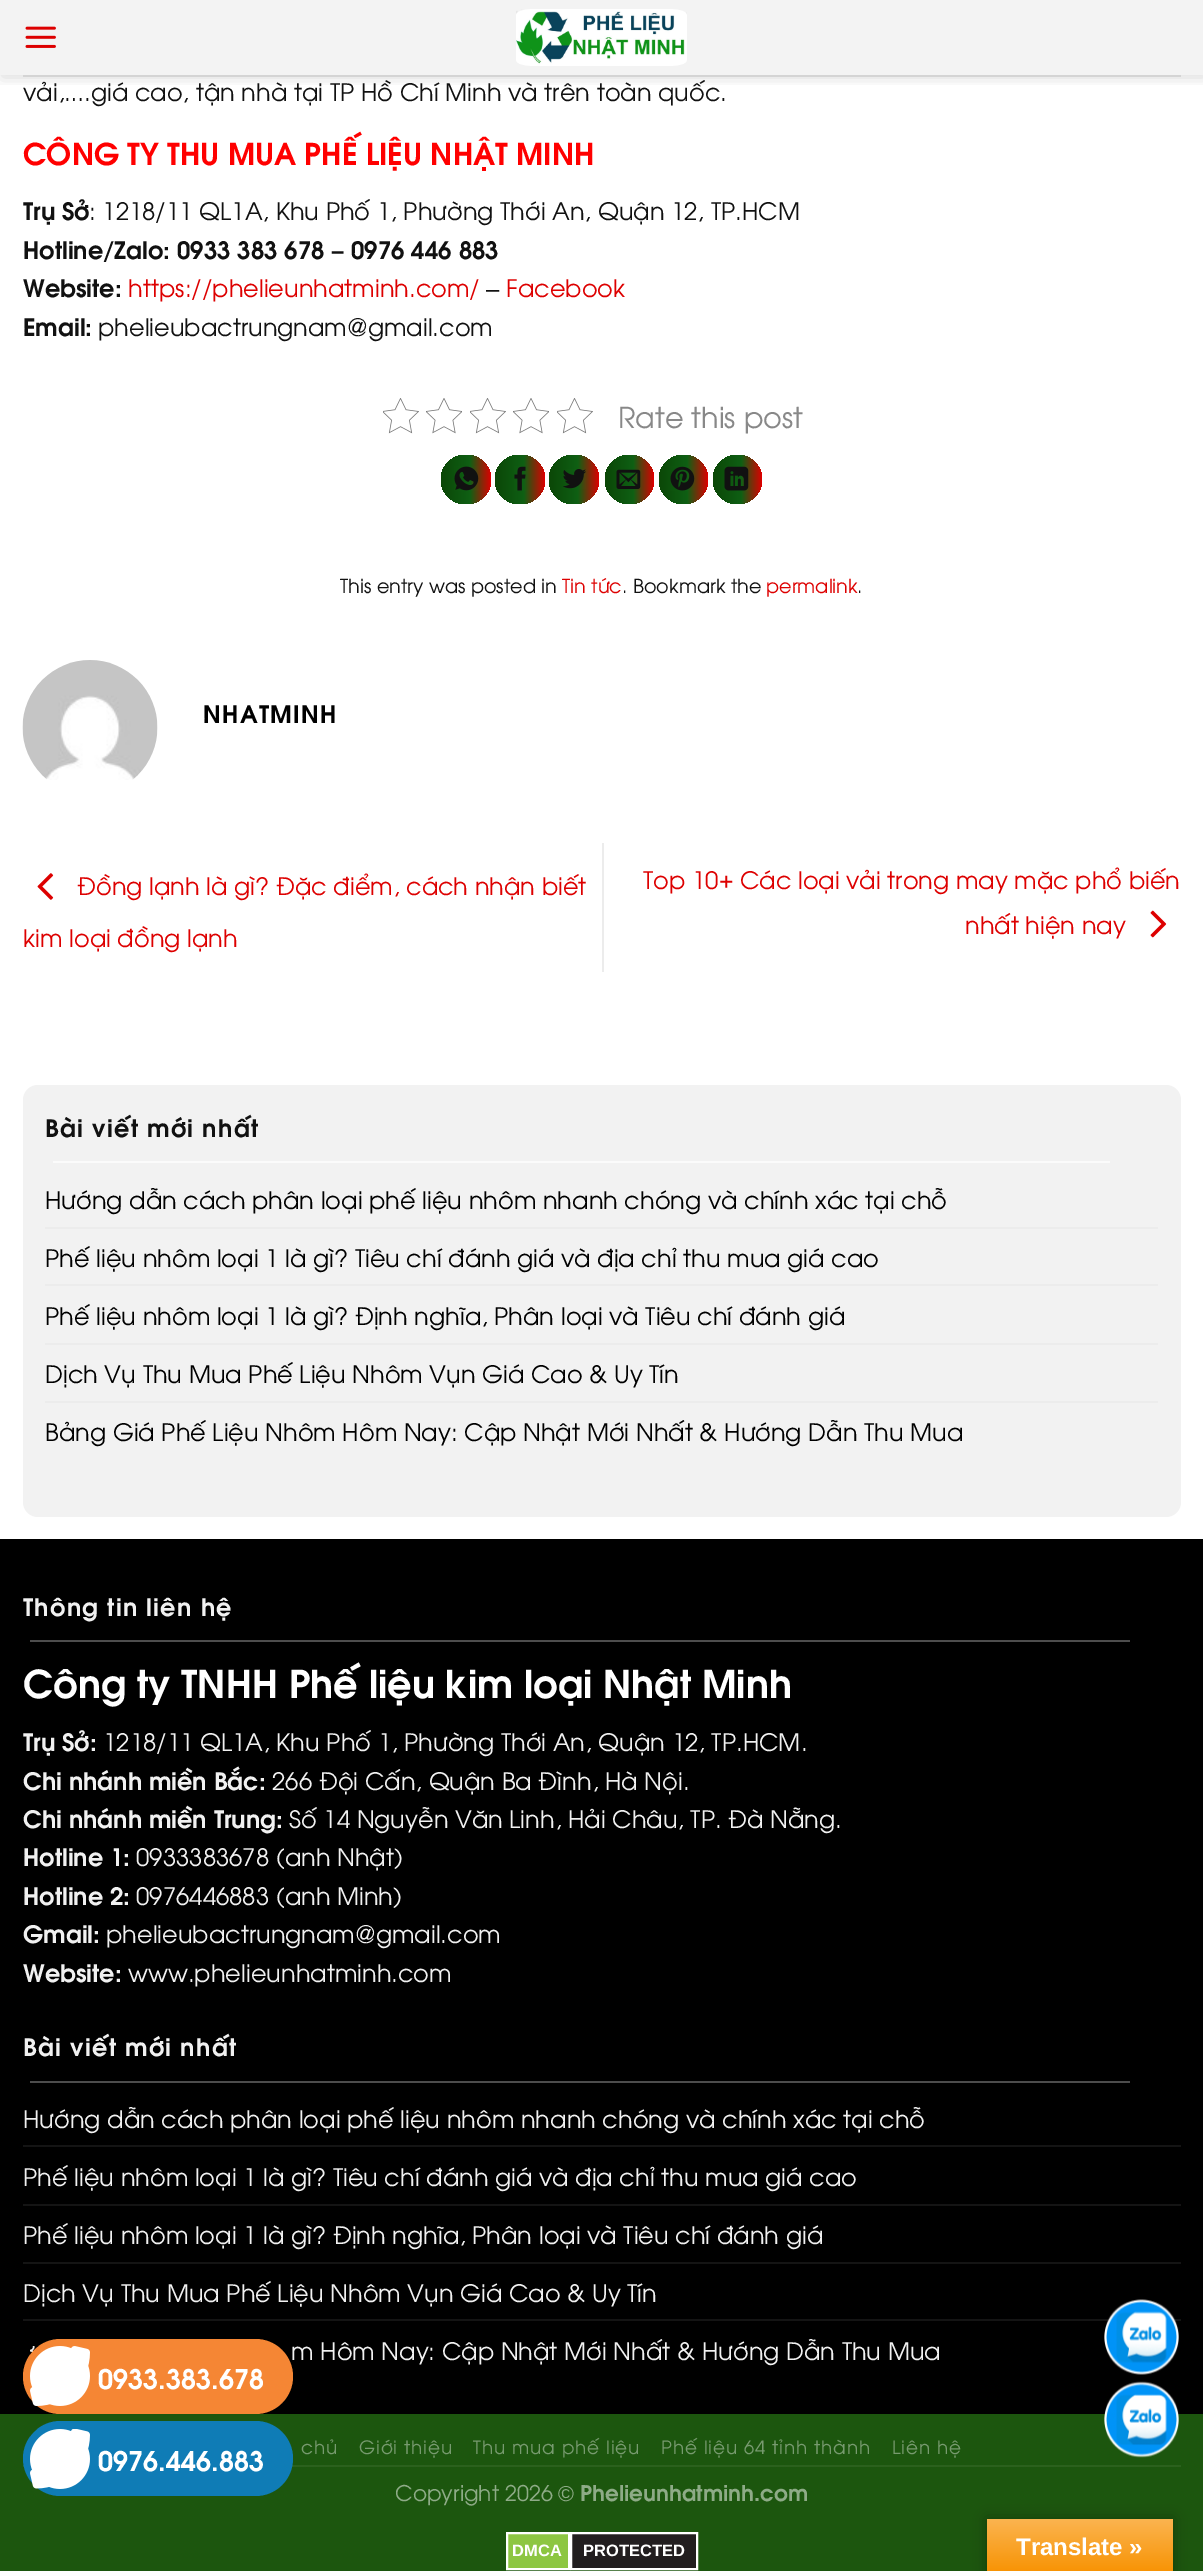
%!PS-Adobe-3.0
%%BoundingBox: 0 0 1203 2571
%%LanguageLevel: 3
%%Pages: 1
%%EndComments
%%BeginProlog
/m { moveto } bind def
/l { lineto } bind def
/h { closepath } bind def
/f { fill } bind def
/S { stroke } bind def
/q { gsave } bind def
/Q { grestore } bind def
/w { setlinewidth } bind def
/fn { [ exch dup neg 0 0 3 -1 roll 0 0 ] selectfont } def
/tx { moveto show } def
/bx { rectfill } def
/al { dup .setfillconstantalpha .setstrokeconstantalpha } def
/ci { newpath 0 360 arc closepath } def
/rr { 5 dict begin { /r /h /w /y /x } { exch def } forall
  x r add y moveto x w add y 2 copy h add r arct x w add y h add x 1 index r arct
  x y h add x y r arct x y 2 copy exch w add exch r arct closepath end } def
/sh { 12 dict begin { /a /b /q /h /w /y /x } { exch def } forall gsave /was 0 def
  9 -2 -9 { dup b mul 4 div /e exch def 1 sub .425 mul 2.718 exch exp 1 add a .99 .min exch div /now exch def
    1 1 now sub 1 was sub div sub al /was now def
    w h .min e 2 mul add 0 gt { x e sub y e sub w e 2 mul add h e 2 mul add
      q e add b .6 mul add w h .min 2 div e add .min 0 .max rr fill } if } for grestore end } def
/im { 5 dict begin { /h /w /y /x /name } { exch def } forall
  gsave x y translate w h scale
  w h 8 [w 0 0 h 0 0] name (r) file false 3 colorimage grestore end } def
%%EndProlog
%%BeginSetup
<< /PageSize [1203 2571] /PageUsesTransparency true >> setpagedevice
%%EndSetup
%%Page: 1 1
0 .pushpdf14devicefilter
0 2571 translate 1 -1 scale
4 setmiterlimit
0.11 0.337 0.055 setrgbcolor
0 0 1203 2571 bx
1 setgray
0 75 1203 1464 bx
0.953 setgray
0 0 1203 75 bx
q
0 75 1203 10 rectclip
0 setgray
2 2 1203 75 0 7.5 0.15 sh
Q
(image0.raw) 25 26 31 22 im
(image1.raw) 516 9 171 57 im
0.831 setgray
23 75 1158 2 bx
/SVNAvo-Regular 24 fn
0.067 setgray
(vải,….giá cao, tận nhà tại TP Hồ Chí Minh và trên toàn quốc.) 23 101 tx
/SVNAvo-Bold 30 fn
1 0 0 setrgbcolor
(CÔNG TY THU MUA PHẾ LIỆU NHẬT MINH) 23 165 tx
/SVNAvo-Bold 24 fn
0.067 setgray
(Trụ Sở) 23 220 tx
/SVNAvo-Regular 24 fn
(: 1218/11 QL1A, Khu Phố 1, Phường Thới An, Quận 12, TP.HCM) 89 220 tx
/SVNAvo-Bold 24 fn
(Hotline/Zalo: 0933 383 678) 23 259 tx
/LiberationSans-Bold 24 fn
(–) 331 259 tx
/SVNAvo-Bold 24 fn
(0976 446 883) 351 259 tx
(Website:) 23 297 tx
/SVNAvo-Regular 24 fn
0.867 0 0 setrgbcolor
(https://phelieunhatminh.com/) 128 297 tx
/LiberationSans-Regular 24 fn
0.067 setgray
(–) 486 297 tx
/SVNAvo-Regular 24 fn
0.867 0 0 setrgbcolor
(Facebook) 506 297 tx
/SVNAvo-Bold 24 fn
0.067 setgray
(Email:) 23 336 tx
/SVNAvo-Regular 24 fn
(phelieubactrungnam@gmail.com) 98 336 tx
(image2.raw) 383 398 36 36 im
(image3.raw) 426 398 36 36 im
(image2.raw) 470 398 36 36 im
(image3.raw) 513 398 36 36 im
(image2.raw) 557 398 36 36 im
/SVNAvo-Regular 28.75 fn
0.533 setgray
(Rate this post) 618 428 tx
q 441 455 50 49 24.5 rr clip newpath
<< /ShadingType 2 /ColorSpace /DeviceRGB /Coords [441 479 491 479] /Extend [true true] /Function << /FunctionType 3 /Domain [0 1] /Functions [<< /FunctionType 2 /Domain [0 1] /C0 [0.043 0.278 0.027] /C1 [0.059 0.376 0.078] /N 1 >> << /FunctionType 2 /Domain [0 1] /C0 [0.059 0.376 0.078] /C1 [0.867 0 0] /N 1 >>] /Bounds [0.58] /Encode [0 1 0 1] >> >> shfill Q
(image4.raw) 454 466 25 25 im
q 495 455 50 49 24.5 rr clip newpath
<< /ShadingType 2 /ColorSpace /DeviceRGB /Coords [495 479 545 479] /Extend [true true] /Function << /FunctionType 3 /Domain [0 1] /Functions [<< /FunctionType 2 /Domain [0 1] /C0 [0.043 0.278 0.027] /C1 [0.059 0.376 0.078] /N 1 >> << /FunctionType 2 /Domain [0 1] /C0 [0.059 0.376 0.078] /C1 [0.867 0 0] /N 1 >>] /Bounds [0.58] /Encode [0 1 0 1] >> >> shfill Q
(image5.raw) 514 466 12 25 im
q 549 455 50 49 24.5 rr clip newpath
<< /ShadingType 2 /ColorSpace /DeviceRGB /Coords [549 479 599 479] /Extend [true true] /Function << /FunctionType 3 /Domain [0 1] /Functions [<< /FunctionType 2 /Domain [0 1] /C0 [0.043 0.278 0.027] /C1 [0.059 0.376 0.078] /N 1 >> << /FunctionType 2 /Domain [0 1] /C0 [0.059 0.376 0.078] /C1 [0.867 0 0] /N 1 >>] /Bounds [0.58] /Encode [0 1 0 1] >> >> shfill Q
(image6.raw) 563 469 23 20 im
q 629.5 479.5 24.5 ci clip newpath
<< /ShadingType 2 /ColorSpace /DeviceRGB /Coords [605 479 654 479] /Extend [true true] /Function << /FunctionType 3 /Domain [0 1] /Functions [<< /FunctionType 2 /Domain [0 1] /C0 [0.043 0.278 0.027] /C1 [0.059 0.376 0.078] /N 1 >> << /FunctionType 2 /Domain [0 1] /C0 [0.059 0.376 0.078] /C1 [0.867 0 0] /N 1 >>] /Bounds [0.58] /Encode [0 1 0 1] >> >> shfill Q
(image7.raw) 616 469 25 20 im
q 683.5 479.5 24.5 ci clip newpath
<< /ShadingType 2 /ColorSpace /DeviceRGB /Coords [659 479 708 479] /Extend [true true] /Function << /FunctionType 3 /Domain [0 1] /Functions [<< /FunctionType 2 /Domain [0 1] /C0 [0.043 0.278 0.027] /C1 [0.059 0.376 0.078] /N 1 >> << /FunctionType 2 /Domain [0 1] /C0 [0.059 0.376 0.078] /C1 [0.867 0 0] /N 1 >>] /Bounds [0.58] /Encode [0 1 0 1] >> >> shfill Q
(image8.raw) 670 466 25 25 im
q 737.5 479.5 24.5 ci clip newpath
<< /ShadingType 2 /ColorSpace /DeviceRGB /Coords [713 479 762 479] /Extend [true true] /Function << /FunctionType 3 /Domain [0 1] /Functions [<< /FunctionType 2 /Domain [0 1] /C0 [0.043 0.278 0.027] /C1 [0.059 0.376 0.078] /N 1 >> << /FunctionType 2 /Domain [0 1] /C0 [0.059 0.376 0.078] /C1 [0.867 0 0] /N 1 >>] /Bounds [0.58] /Encode [0 1 0 1] >> >> shfill Q
(image9.raw) 724 466 25 25 im
/SVNAvo-Regular 19.25 fn
0.067 setgray
(This entry was posted in) 340 593 tx
0.867 0 0 setrgbcolor
(Tin tức) 562 593 tx
0.067 setgray
(. Bookmark the) 622 593 tx
0.867 0 0 setrgbcolor
(permalink) 766 593 tx
0.067 setgray
(.) 857 593 tx
(image10.raw) 22 660 136 120 im
/SVNAvo-Bold 24 fn
0 setgray
203 723 m 1.25 0 (NHATMINH) ashow
(image11.raw) 37 873 17 27 im
/SVNAvo-Regular 24 fn
0.867 0 0 setrgbcolor
(Đồng lạnh là gì? Đặc điểm, cách nhận biết) 77 895 tx
(kim loại đồng lạnh) 23 947 tx
0.925 setgray
602 843 2 129 bx
0.867 0 0 setrgbcolor
(Top 10+ Các loại vải trong may mặc phổ biến) 643 889 tx
(nhất hiện nay) 965 934 tx
(image12.raw) 1150 910 17 28 im
0.949 setgray
23 1085 1158 432 15 rr f
/SVNAvo-Bold 24 fn
0.067 setgray
45 1137 m 1.25 0 (Bài viết mới nhất) ashow
0.984 setgray
53 1161 1057 2 bx
/SVNAvo-Regular 24 fn
0 setgray
(Hướng dẫn cách phân loại phế liệu nhôm nhanh chóng và chính xác tại chỗ) 45 1209 tx
0.925 setgray
45 1227 1113 2 bx
0 setgray
(Phế liệu nhôm loại 1 là gì? Tiêu chí đánh giá và địa chỉ thu mua giá cao) 45 1267 tx
0.925 setgray
45 1284 1113 2 bx
0 setgray
(Phế liệu nhôm loại 1 là gì? Định nghĩa, Phân loại và Tiêu chí đánh giá) 45 1325 tx
0.925 setgray
45 1343 1113 2 bx
0 setgray
(Dịch Vụ Thu Mua Phế Liệu Nhôm Vụn Giá Cao & Uy Tín) 45 1383 tx
0.925 setgray
45 1401 1113 2 bx
0 setgray
(Bảng Giá Phế Liệu Nhôm Hôm Nay: Cập Nhật Mới Nhất & Hướng Dẫn Thu Mua) 45 1441 tx
0 1539 1203 875 bx
/SVNAvo-Bold 24 fn
0.945 setgray
23 1616 m 1.25 0 (Thông tin liên hệ) ashow
0.302 setgray
30 1640 1100 2 bx
/SVNAvo-Bold 38.4 fn
1 setgray
(Công ty TNHH Phế liệu kim loại Nhật Minh) 23 1698 tx
/SVNAvo-Bold 24 fn
0.945 setgray
(Trụ Sở:) 23 1751 tx
/SVNAvo-Regular 24 fn
(1218/11 QL1A, Khu Phố 1, Phường Thới An, Quận 12, TP.HCM.) 103 1751 tx
/SVNAvo-Bold 24 fn
(Chi nhánh miền Bắc:) 23 1790 tx
/SVNAvo-Regular 24 fn
(266 Đội Cấn, Quận Ba Đình, Hà Nội.) 272 1790 tx
/SVNAvo-Bold 24 fn
(Chi nhánh miền Trung:) 23 1828 tx
/SVNAvo-Regular 24 fn
(Số 14 Nguyễn Văn Linh, Hải Châu, TP. Đà Nẵng.) 289 1828 tx
/SVNAvo-Bold 24 fn
(Hotline 1:) 23 1866 tx
/SVNAvo-Regular 24 fn
(0933383678 \(anh Nhật\)) 136 1866 tx
/SVNAvo-Bold 24 fn
(Hotline 2:) 23 1905 tx
/SVNAvo-Regular 24 fn
(0976446883 \(anh Minh\)) 136 1905 tx
/SVNAvo-Bold 24 fn
(Gmail:) 23 1943 tx
/SVNAvo-Regular 24 fn
(phelieubactrungnam@gmail.com) 106 1943 tx
/SVNAvo-Bold 24 fn
(Website:) 23 1982 tx
/SVNAvo-Regular 24 fn
(www.phelieunhatminh.com) 128 1982 tx
/SVNAvo-Bold 24 fn
23 2056 m 1.25 0 (Bài viết mới nhất) ashow
0.302 setgray
30 2081 1100 2 bx
/SVNAvo-Regular 24 fn
0.945 setgray
(Hướng dẫn cách phân loại phế liệu nhôm nhanh chóng và chính xác tại chỗ) 23 2128 tx
0.078 setgray
23 2145 1158 2 bx
0.945 setgray
(Phế liệu nhôm loại 1 là gì? Tiêu chí đánh giá và địa chỉ thu mua giá cao) 23 2186 tx
0.078 setgray
23 2204 1158 2 bx
0.945 setgray
(Phế liệu nhôm loại 1 là gì? Định nghĩa, Phân loại và Tiêu chí đánh giá) 23 2244 tx
0.078 setgray
23 2262 1158 2 bx
0.945 setgray
(Dịch Vụ Thu Mua Phế Liệu Nhôm Vụn Giá Cao & Uy Tín) 23 2302 tx
0.078 setgray
23 2319 1158 2 bx
0.945 setgray
(m Hôm Nay: Cập Nhật Mới Nhất & Hướng Dẫn Thu Mua) 291 2360 tx
0.169 0.38 0.114 setrgbcolor
23 2465 1158 2 bx
/SVNAvo-Regular 18.4 fn
0.467 0.604 0.435 setrgbcolor
301 2454 m 0.9 0 (chủ) ashow
359 2454 m 0.9 0 (Giới thiệu) ashow
473 2454 m 0.9 0 (Thu mua phế liệu) ashow
661 2454 m 0.9 0 (Phế liệu 64 tỉnh thành) ashow
892 2454 m 0.9 0 (Liên hệ) ashow
/SVNAvo-Regular 21.6 fn
0.557 0.671 0.529 setrgbcolor
(Copyright 2026) 395 2501 tx
/LiberationSans-Regular 21.6 fn
(©) 558 2501 tx
/SVNAvo-Bold 21.6 fn
(Phelieunhatminh.com) 580 2501 tx
0.961 0.525 0.204 setrgbcolor
23 2339 270 75 37.5 rr f
1 setgray
60 2376 30 ci f
(image13.raw) 30 2346 60 60 im
/SVNAvo-Bold 27 fn
(0933.383.678) 98 2389 tx
(image14.raw) 1104 2299 75 76 im
(image15.raw) 1104 2381 75 77 im
0.059 0.486 0.714 setrgbcolor
23 2421 270 75 37.5 rr f
1 setgray
60 2459 30 ci f
(image16.raw) 30 2429 60 60 im
(0976.446.883) 98 2471 tx
0.553 0.776 0.259 setrgbcolor
507 2533 m 569 2533 l 569 2569 l 507 2569 l h q f Q
1 setgray
2 w
S
/LiberationSans-Bold 16.5 fn
(DMCA) 512 2556 tx
0.133 0.118 0.122 setrgbcolor
571 2533 m 697 2533 l 697 2569 l 571 2569 l h q f Q
1 setgray
S
(PROTECTED) 583 2556 tx
0 setgray
987 2519 186 52 0 7 0.3 sh
q 987 2519 m 1173 2519 l 1173 2571 l 987 2571 l h clip newpath
<< /ShadingType 2 /ColorSpace /DeviceRGB /Coords [1080 2519 1080 2571] /Extend [true true] /Function << /FunctionType 2 /Domain [0 1] /C0 [0.984 0.706 0.314] /C1 [0.973 0.58 0.024] /N 1 >> >> shfill Q
/LiberationSans-Bold 24 fn
1 setgray
(Translate ») 1016 2555 tx
.poppdf14devicefilter showpage
%%EOF
